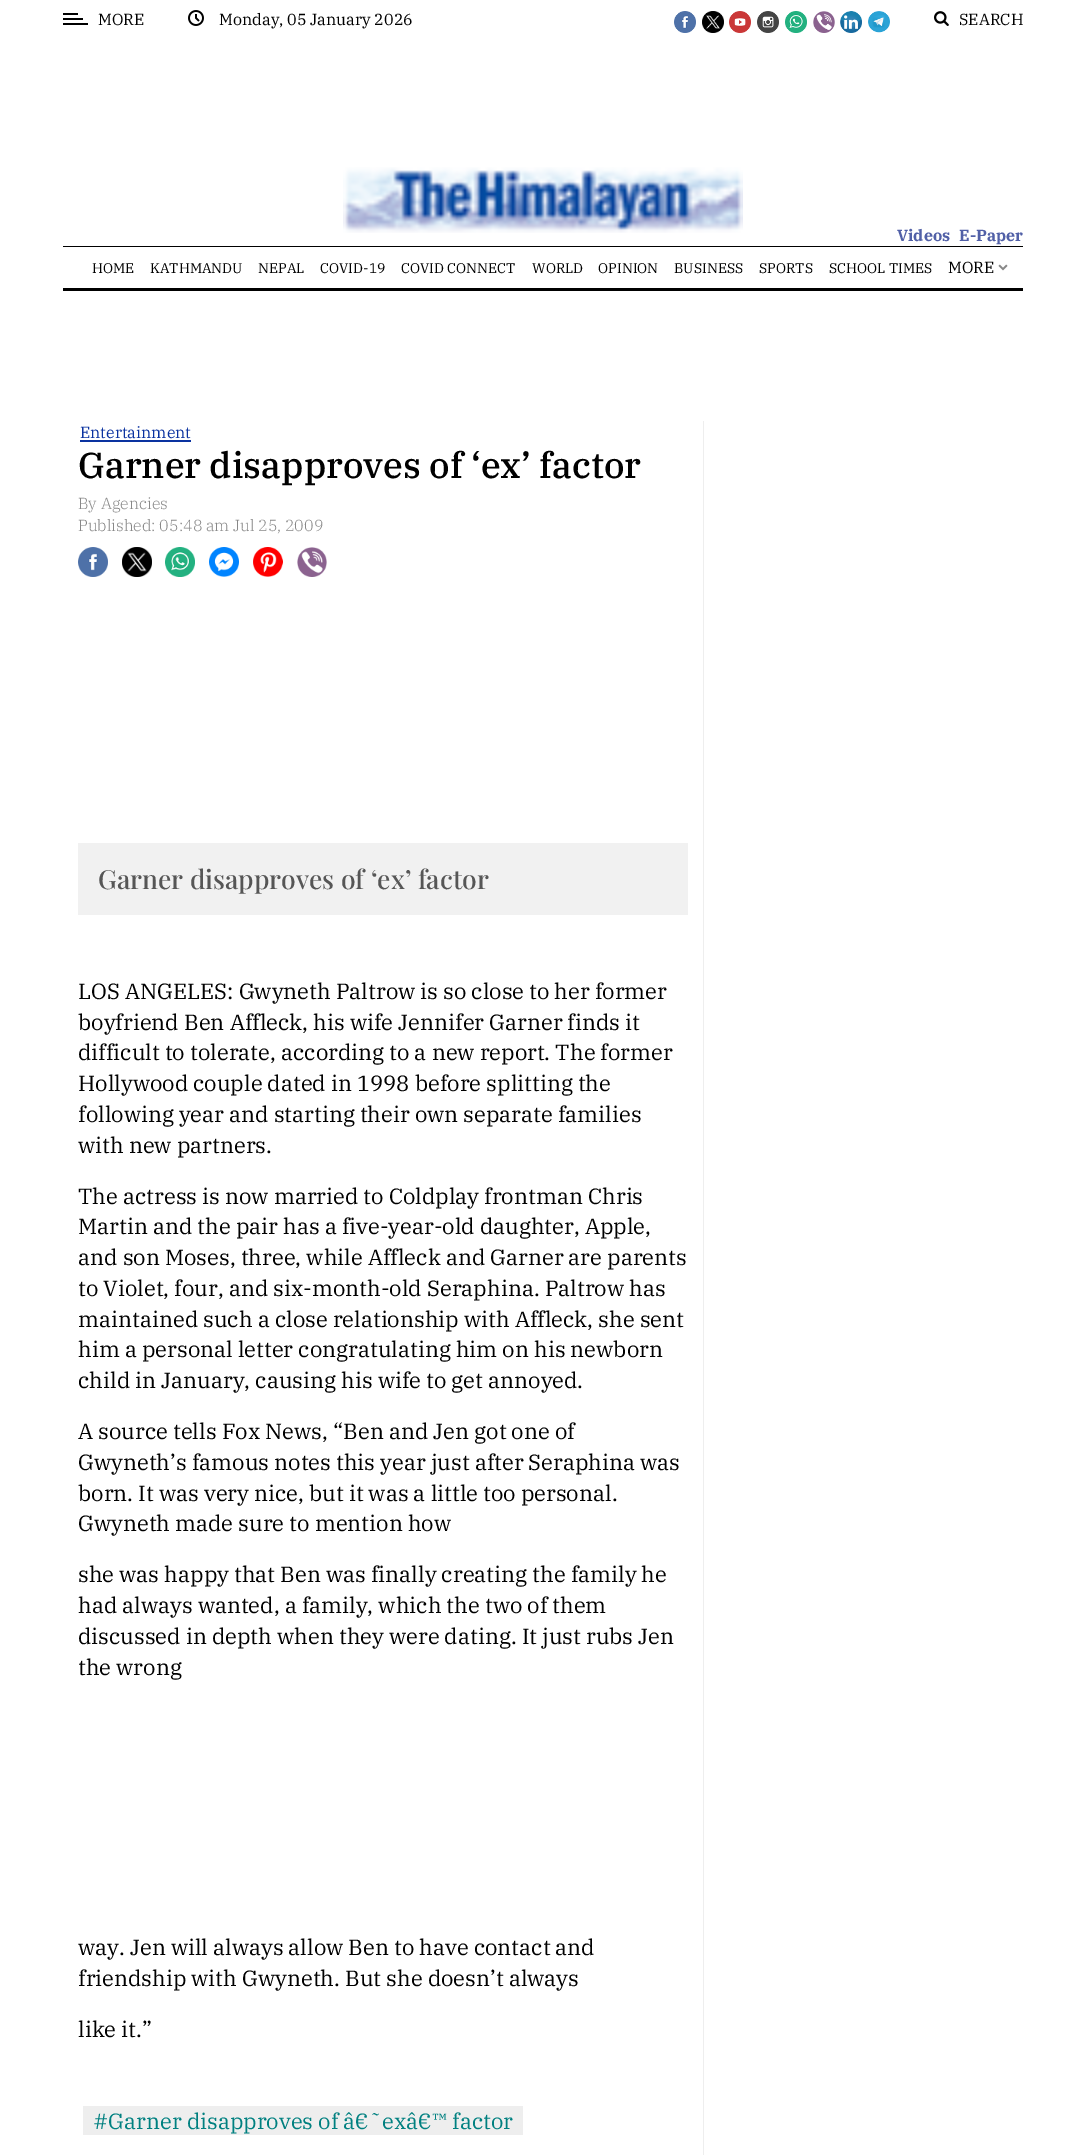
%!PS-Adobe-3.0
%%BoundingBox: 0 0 1086 2155
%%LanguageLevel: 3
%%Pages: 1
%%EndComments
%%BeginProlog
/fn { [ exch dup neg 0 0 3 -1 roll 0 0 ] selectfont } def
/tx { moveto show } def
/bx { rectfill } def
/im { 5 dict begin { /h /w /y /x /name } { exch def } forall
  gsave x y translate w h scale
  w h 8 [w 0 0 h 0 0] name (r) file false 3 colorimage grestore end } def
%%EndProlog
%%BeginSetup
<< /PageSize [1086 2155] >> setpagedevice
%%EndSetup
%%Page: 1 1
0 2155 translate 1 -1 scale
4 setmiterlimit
1 setgray
0 0 1086 2155 bx
0 setgray
63 23 25 2 bx
63 13 15 2 bx
63 18 20 2 bx
/IBMPlexSerif-Regular 16 fn
(MORE) 98 25 tx
(image0.raw) 188 10 16 16 im
(Monday, 05 January 2026) 219 25 tx
(image1.raw) 674 11 22 22 im
(image2.raw) 702 11 22 22 im
(image3.raw) 729 11 22 22 im
(image4.raw) 757 11 22 22 im
(image5.raw) 785 11 22 22 im
(image6.raw) 813 11 22 22 im
(image7.raw) 840 11 22 22 im
(image8.raw) 868 11 22 22 im
(image9.raw) 934 11 15 15 im
(SEARCH) 959 25 tx
63 246 960 1 bx
(image10.raw) 343 167 400 66 im
/IBMPlexSerif-Bold 16 fn
0.318 0.376 0.655 setrgbcolor
(Videos) 897 241 tx
(E-Paper) 959 241 tx
0 setgray
63 288 960 3 bx
/IBMPlexSerif-Regular 14 fn
(HOME) 92 273 tx
(KATHMANDU) 150 273 tx
(NEPAL) 258 273 tx
(COVID-19) 320 273 tx
(COVID CONNECT) 401 273 tx
(WORLD) 532 273 tx
(OPINION) 598 273 tx
(BUSINESS) 674 273 tx
(SPORTS) 759 273 tx
(SCHOOL TIMES) 829 273 tx
/IBMPlexSerif-Regular 16 fn
(MORE) 948 273 tx
(image11.raw) 998 264 10 7 im
0.039 0.196 0.627 setrgbcolor
(Entertainment) 80 438 tx
80 440 111 2 bx
/IBMPlexSerif-Medium 36 fn
0 setgray
(Garner disapproves of ‘ex’ factor) 78 478 tx
/IBMPlexSerif-Light 16 fn
0.533 setgray
(By Agencies) 78 509 tx
(Published: 05:48 am Jul 25, 2009) 78 531 tx
(image12.raw) 78 547 30 30 im
(image13.raw) 122 547 30 30 im
(image14.raw) 165 547 30 30 im
(image15.raw) 209 547 30 30 im
(image16.raw) 253 547 30 30 im
(image17.raw) 297 547 30 30 im
0.945 setgray
78 843 610 72 bx
/PlayfairDisplay-Medium 26.4 fn
0.337 setgray
(Garner disapproves of ‘ex’ factor) 98 889 tx
/IBMPlexSerif-Regular 22 fn
0 setgray
(LOS ANGELES: Gwyneth Paltrow is so close to her former) 78 999 tx
(boyfriend Ben Affleck, his wife Jennifer Garner finds it) 78 1030 tx
(difficult to tolerate, according to a new report. The former) 78 1060 tx
(Hollywood couple dated in 1998 before splitting the) 78 1091 tx
(following year and starting their own separate families) 78 1122 tx
(with new partners.) 78 1153 tx
(The actress is now married to Coldplay frontman Chris) 78 1204 tx
(Martin and the pair has a five-year-old daughter, Apple,) 78 1234 tx
(and son Moses, three, while Affleck and Garner are parents) 78 1265 tx
(to Violet, four, and six-month-old Seraphina. Paltrow has) 78 1296 tx
(maintained such a close relationship with Affleck, she sent) 78 1327 tx
(him a personal letter congratulating him on his newborn) 78 1357 tx
(child in January, causing his wife to get annoyed.) 78 1388 tx
(A source tells Fox News, “Ben and Jen got one of) 78 1439 tx
(Gwyneth’s famous notes this year just after Seraphina was) 78 1470 tx
(born. It was very nice, but it was a little too personal.) 78 1501 tx
(Gwyneth made sure to mention how) 78 1531 tx
(she was happy that Ben was finally creating the family he) 78 1582 tx
(had always wanted, a family, which the two of them) 78 1613 tx
(discussed in depth when they were dating. It just rubs Jen) 78 1644 tx
(the wrong) 78 1675 tx
(way. Jen will always allow Ben to have contact and) 78 1955 tx
(friendship with Gwyneth. But she doesn’t always) 78 1986 tx
(like it.”) 78 2037 tx
0.933 setgray
83 2106 440 29 bx
0 0.502 0.502 setrgbcolor
(#Garner disapproves of â€˜exâ€™ factor) 93 2129 tx
0.933 setgray
703 421 1 1734 bx
showpage
%%EOF
